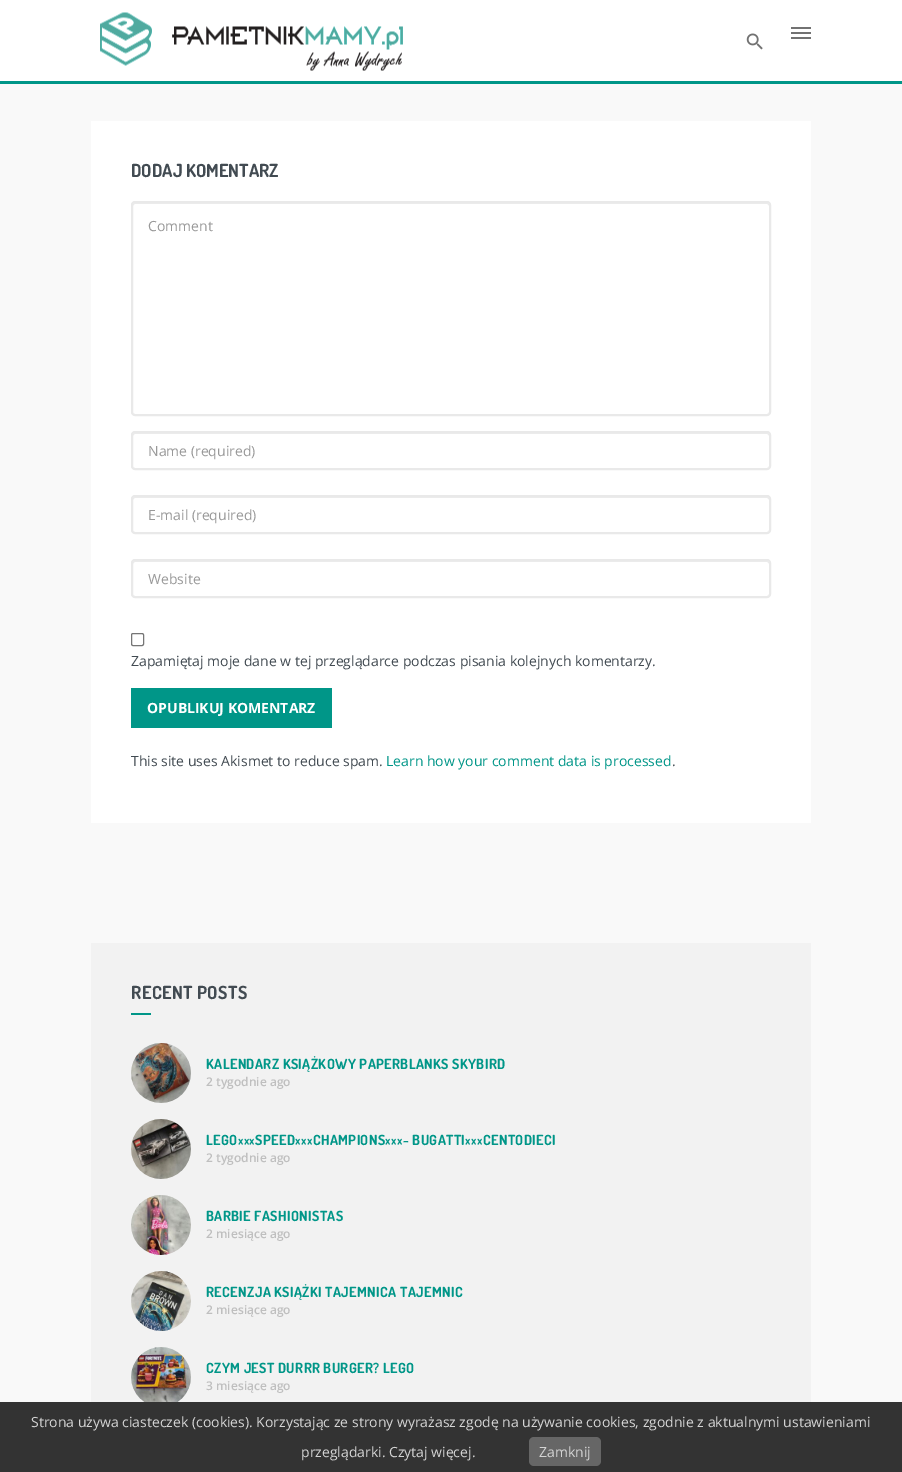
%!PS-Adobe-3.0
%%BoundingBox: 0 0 902 1472
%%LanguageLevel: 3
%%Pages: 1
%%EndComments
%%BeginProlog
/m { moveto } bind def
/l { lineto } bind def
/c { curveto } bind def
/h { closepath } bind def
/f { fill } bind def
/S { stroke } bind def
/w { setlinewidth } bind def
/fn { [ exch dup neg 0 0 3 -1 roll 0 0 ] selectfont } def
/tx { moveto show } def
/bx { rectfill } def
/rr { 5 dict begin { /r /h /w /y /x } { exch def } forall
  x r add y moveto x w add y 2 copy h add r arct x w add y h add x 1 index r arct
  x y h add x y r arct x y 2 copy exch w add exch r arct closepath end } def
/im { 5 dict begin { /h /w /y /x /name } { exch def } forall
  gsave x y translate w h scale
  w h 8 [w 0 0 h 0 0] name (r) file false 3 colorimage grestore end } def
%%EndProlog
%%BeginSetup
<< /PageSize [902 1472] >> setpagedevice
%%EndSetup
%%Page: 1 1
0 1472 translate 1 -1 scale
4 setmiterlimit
0.976 setgray
0 0 902 1472 bx
1 setgray
0 0 902 81 bx
0 0.588 0.533 setrgbcolor
0 81 902 3 bx
(image0.raw) 100 12 303 59 im
(image1.raw) 746 33 17 17 im
0.447 setgray
791 27 20 2 bx
791 32 20 2 bx
791 37 20 2 bx
1 setgray
91 121 720 702 bx
/Dosis-Bold 18 fn
0.259 0.294 0.322 setrgbcolor
(DODAJ KOMENTARZ) 131 177 tx
0.925 setgray
135 204 m 767 204 l 768 204 769 205 769 206 c 769 205 769 203 767 203 c 135 203 l 133 203 133 205 133 206 c 133 205 134 204 135 204 c h f
0.914 setgray
2 w
132 202 638 213 3 rr S
/OpenSans-Regular 14 fn
0.6 setgray
(Comment) 148 231 tx
0.925 setgray
135 434 m 767 434 l 768 434 769 435 769 436 c 769 435 769 433 767 433 c 135 433 l 133 433 133 435 133 436 c 133 435 134 434 135 434 c h f
0.914 setgray
132 432 638 37 3 rr S
0.6 setgray
(Name \(required\)) 148 456 tx
0.925 setgray
135 498 m 767 498 l 768 498 769 499 769 500 c 769 499 769 497 767 497 c 135 497 l 133 497 133 499 133 500 c 133 499 134 498 135 498 c h f
0.914 setgray
132 496 638 37 3 rr S
0.6 setgray
(E-mail \(required\)) 148 520 tx
0.925 setgray
135 562 m 767 562 l 768 562 769 563 769 564 c 769 563 769 561 767 561 c 135 561 l 133 561 133 563 133 564 c 133 563 134 562 135 562 c h f
0.914 setgray
132 560 638 37 3 rr S
0.6 setgray
(Website) 148 584 tx
0.463 setgray
1 w
131.5 633.5 12 12 1.5 rr S
0.259 0.294 0.322 setrgbcolor
(Zapamiętaj moje dane w tej przeglądarce podczas pisania kolejnych komentarzy.) 131 666 tx
0 0.588 0.533 setrgbcolor
131 688 201 40 bx
/OpenSans-Bold 14 fn
1 setgray
(OPUBLIKUJ KOMENTARZ) 147 713 tx
/OpenSans-Regular 14 fn
0.259 0.294 0.322 setrgbcolor
(This site uses Akismet to reduce spam.) 131 766 tx
0 0.588 0.533 setrgbcolor
(Learn how your comment data is processed) 386 766 tx
0.259 0.294 0.322 setrgbcolor
(.) 672 766 tx
0.949 setgray
91 943 720 459 bx
/Dosis-Bold 18 fn
0.259 0.294 0.322 setrgbcolor
131 999 m 0.4 0 (RECENT POSTS) ashow
0 0.588 0.533 setrgbcolor
131 1013 20 2 bx
(image2.raw) 131 1043 60 60 im
/Dosis-Bold 14 fn
206 1069 m 0.4 0 (KALENDARZ KSIĄŻKOWY PAPERBLANKS SKYBIRD) ashow
/OpenSans-SemiBold 12 fn
0.749 setgray
(2 tygodnie ago) 206 1086 tx
(image3.raw) 131 1119 60 60 im
/Dosis-Bold 14 fn
0 0.588 0.533 setrgbcolor
206 1145 m 0.4 0 (LEGO SPEED CHAMPIONS - BUGATTI CENTODIECI) ashow
/OpenSans-SemiBold 12 fn
0.749 setgray
(2 tygodnie ago) 206 1162 tx
(image4.raw) 131 1195 60 60 im
/Dosis-Bold 14 fn
0 0.588 0.533 setrgbcolor
206 1221 m 0.4 0 (BARBIE FASHIONISTAS) ashow
/OpenSans-SemiBold 12 fn
0.749 setgray
(2 miesiące ago) 206 1238 tx
(image5.raw) 131 1271 60 60 im
/Dosis-Bold 14 fn
0 0.588 0.533 setrgbcolor
206 1297 m 0.4 0 (RECENZJA KSIĄŻKI TAJEMNICA TAJEMNIC) ashow
/OpenSans-SemiBold 12 fn
0.749 setgray
(2 miesiące ago) 206 1314 tx
(image6.raw) 131 1347 60 55 im
/Dosis-Bold 14 fn
0 0.588 0.533 setrgbcolor
206 1373 m 0.4 0 (CZYM JEST DURRR BURGER? LEGO) ashow
/OpenSans-SemiBold 12 fn
0.749 setgray
(3 miesiące ago) 206 1390 tx
0.2 setgray
0 1402 902 70 bx
/OpenSans-Regular 14 fn
0.831 setgray
(Strona używa ciasteczek \(cookies\). Korzystając ze strony wyrażasz zgodę na używanie cookies, zgodnie z aktualnymi ustawieniami) 31 1427 tx
(przeglądarki. Czytaj więcej.) 301 1457 tx
0.4 setgray
529 1437 72 29 5 rr f
0.831 setgray
(Zamknij) 539 1457 tx
showpage
%%EOF
